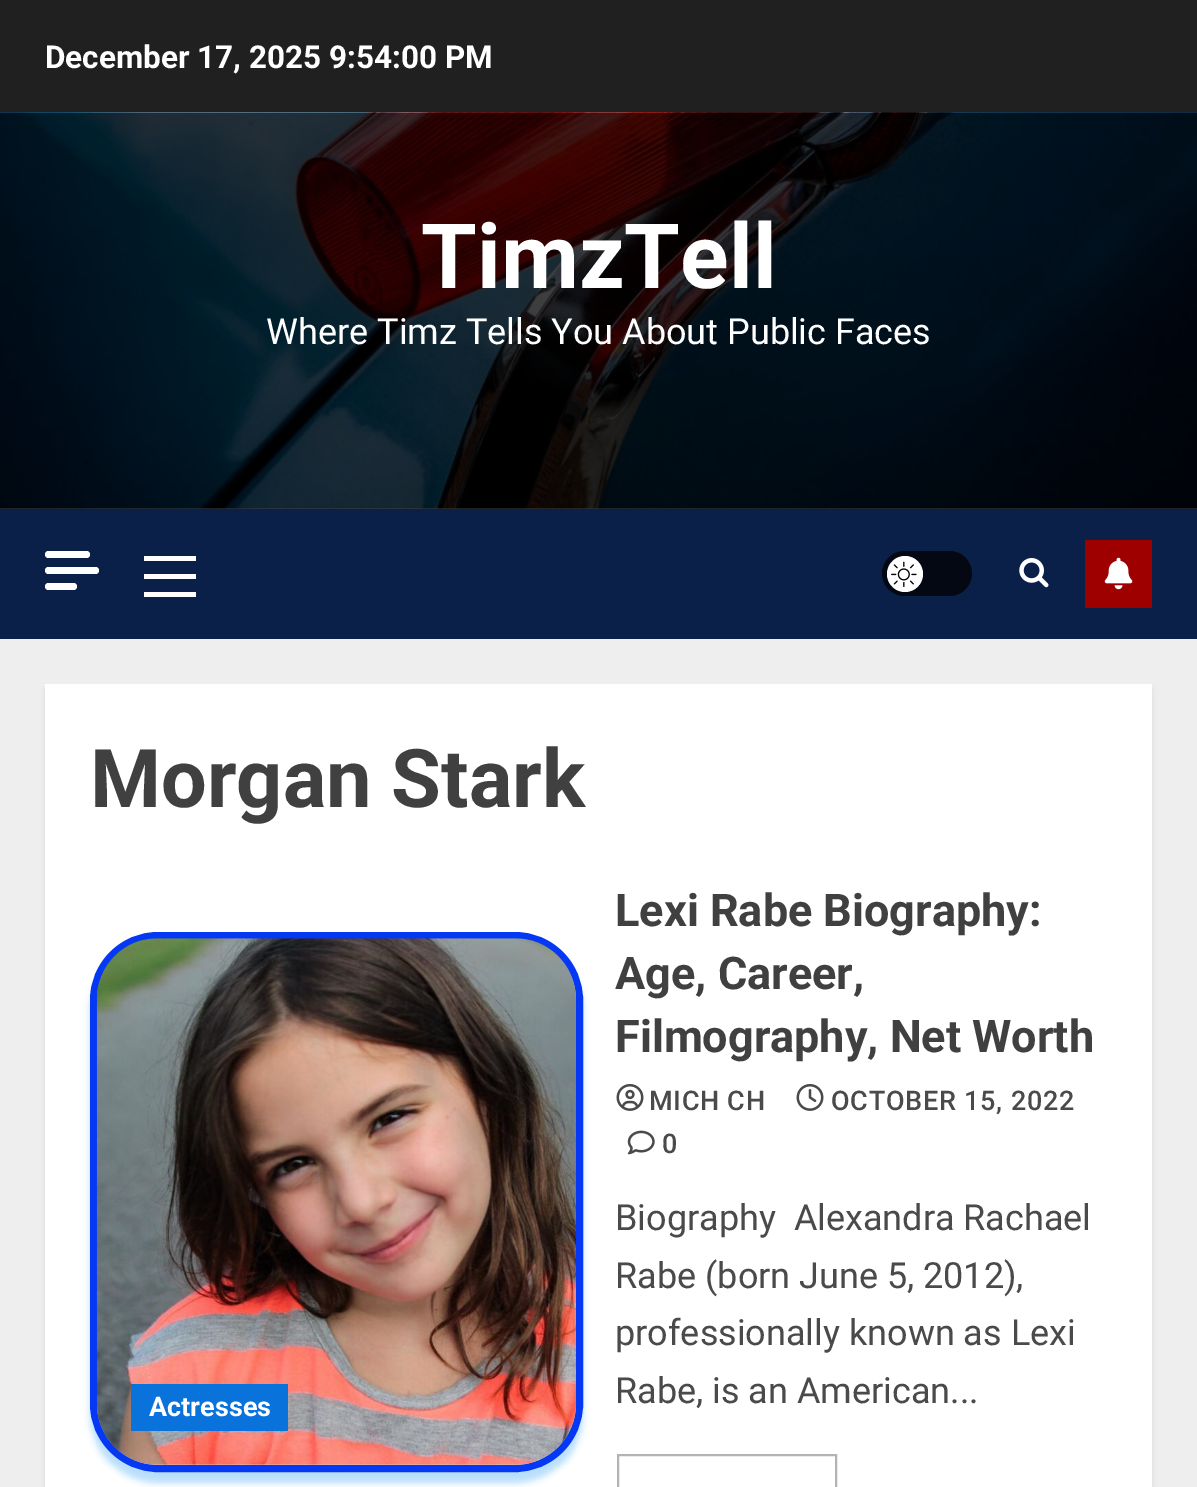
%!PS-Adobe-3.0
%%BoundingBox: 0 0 1197 1487
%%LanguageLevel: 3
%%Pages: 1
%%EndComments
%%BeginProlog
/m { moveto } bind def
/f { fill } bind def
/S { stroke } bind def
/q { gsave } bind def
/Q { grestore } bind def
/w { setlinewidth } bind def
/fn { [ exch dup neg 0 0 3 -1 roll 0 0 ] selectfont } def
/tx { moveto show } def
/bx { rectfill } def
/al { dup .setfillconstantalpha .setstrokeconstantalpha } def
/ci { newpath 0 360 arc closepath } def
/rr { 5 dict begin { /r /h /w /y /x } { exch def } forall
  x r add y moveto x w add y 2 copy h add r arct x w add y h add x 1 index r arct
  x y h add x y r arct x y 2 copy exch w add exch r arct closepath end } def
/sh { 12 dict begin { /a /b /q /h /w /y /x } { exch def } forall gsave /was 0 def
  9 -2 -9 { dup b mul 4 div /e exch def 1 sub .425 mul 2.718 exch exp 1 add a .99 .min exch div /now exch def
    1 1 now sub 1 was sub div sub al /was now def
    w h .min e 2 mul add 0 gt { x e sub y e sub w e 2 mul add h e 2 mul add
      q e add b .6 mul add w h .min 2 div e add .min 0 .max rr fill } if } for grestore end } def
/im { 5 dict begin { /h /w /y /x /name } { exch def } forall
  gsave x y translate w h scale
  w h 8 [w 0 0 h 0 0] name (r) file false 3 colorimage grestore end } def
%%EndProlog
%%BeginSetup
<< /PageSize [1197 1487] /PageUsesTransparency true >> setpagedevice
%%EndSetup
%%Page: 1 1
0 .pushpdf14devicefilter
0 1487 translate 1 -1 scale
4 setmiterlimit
0.933 setgray
0 0 1197 1487 bx
0.125 setgray
0 0 1197 113 bx
/Roboto-Bold 31.5 fn
1 setgray
(December 17, 2025 9:54:00 PM) 45 68 tx
0.251 setgray
0 508 1197 1 bx
(image0.raw) 0 112 1197 397 im
/Roboto-Bold 90 fn
1 setgray
(TimzTell) 421 288 tx
/Roboto-Regular 36 fn
(Where Timz Tells You About Public Faces) 266 344 tx
0.043 0.125 0.282 setrgbcolor
0 509 1197 130 bx
1 setgray
45 551 45 7 3.5 rr f
45 567 54 7 3.5 rr f
45 583 32 7 3.5 rr f
144 574 52 5 bx
144 556 52 5 bx
144 592 52 5 bx
0.012 0.031 0.071 setrgbcolor
882 551 90 45 22.5 rr f
1 setgray
905 574 18 ci f
(image1.raw) 891 561 26 26 im
(image2.raw) 1019 558 30 30 im
0.62 0 0 setrgbcolor
1085 540 67 68 bx
(image3.raw) 1104 557 29 33 im
0 setgray
45 689 1107 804 0 2 0.08 sh
1 setgray
45 684 1107 803 bx
/Roboto-Bold 81 fn
0.251 setgray
(Morgan Stark) 90 807 tx
0.055 0.573 0.961 setrgbcolor
90 943 493 540 68 3.5 0.3 sh
0.8 setgray
93.5 935.5 486 533 64.5 rr q f Q
0.016 0.22 0.957 setrgbcolor
7 w
S
(image4.raw) 96 938 480 527 im
0.039 0.447 0.859 setrgbcolor
131 1384 157 47 bx
/Roboto-Bold 27 fn
1 setgray
(Actresses) 149 1416 tx
/Roboto-Bold 45 fn
0.251 setgray
(Lexi Rabe Biography:) 615 926 tx
(Age, Career,) 615 989 tx
(Filmography, Net Worth) 615 1052 tx
(image5.raw) 616 1084 28 27 im
/Roboto-Medium 27 fn
0.29 setgray
649 1110 m 0.75 0 (MICH CH) ashow
(image6.raw) 796 1084 28 27 im
831 1110 m 0.75 0 (OCTOBER 15, 2022) ashow
(image7.raw) 627 1130 28 25 im
662 1153 m 0.75 0 (0) ashow
/Roboto-Regular 36 fn
(Biography  Alexandra Rachael) 615 1230 tx
(Rabe \(born June 5, 2012\),) 615 1288 tx
(professionally known as Lexi) 615 1345 tx
(Rabe, is an American...) 615 1403 tx
0.702 setgray
2 w
618 1455 218 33 rectstroke
.poppdf14devicefilter showpage
%%EOF
